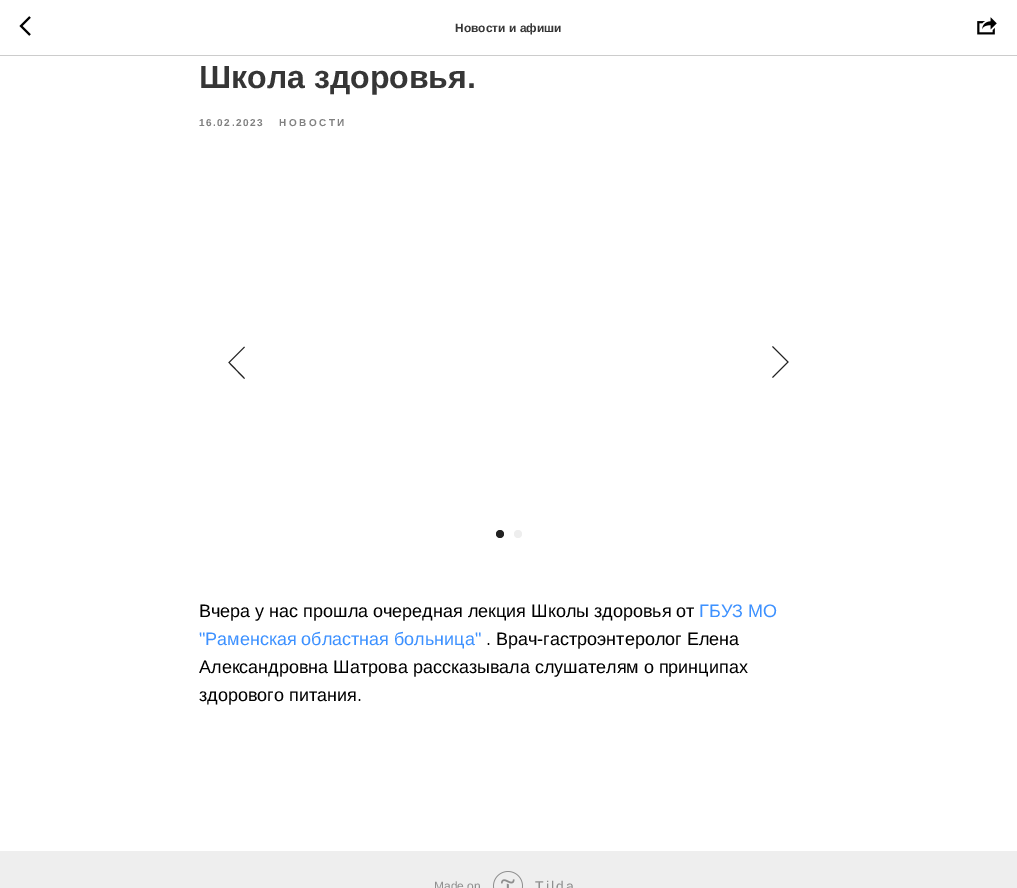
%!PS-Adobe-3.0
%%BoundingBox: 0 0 1017 888
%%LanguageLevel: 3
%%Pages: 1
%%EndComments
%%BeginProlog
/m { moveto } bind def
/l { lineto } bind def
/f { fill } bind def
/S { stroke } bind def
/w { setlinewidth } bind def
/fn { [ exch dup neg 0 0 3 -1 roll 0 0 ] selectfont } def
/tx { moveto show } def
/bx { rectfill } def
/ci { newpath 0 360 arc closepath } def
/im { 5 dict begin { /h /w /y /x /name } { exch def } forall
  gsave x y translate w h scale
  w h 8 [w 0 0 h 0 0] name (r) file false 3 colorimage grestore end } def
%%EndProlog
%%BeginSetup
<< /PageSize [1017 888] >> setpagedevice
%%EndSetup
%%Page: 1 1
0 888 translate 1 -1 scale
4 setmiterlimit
1 setgray
0 0 1017 888 bx
0.8 setgray
0 55 1017 1 bx
0 setgray
2 w
30 35 m 21 26 l 30 17 l S
/LiberationSans-Bold 12 fn
0.212 setgray
(Новости и афиши) 455 32 tx
(image0.raw) 977 17 20 18 im
/LiberationSans-Bold 32 fn
(Школа здоровья.) 199 88 tx
/LiberationSans-Bold 10 fn
0.502 setgray
199 126 m 1.5 0 (16.02.2023) ashow
279 126 m 2.5 0 (НОВОСТИ) ashow
0.133 setgray
1 w
244.5 378.5 m 229 362.5 l 244.5 347 l S
772.5 346.5 m 788 362 l 772.5 377.5 l S
500 534 4 ci f
0.933 setgray
518 534 4 ci f
/LiberationSans-Regular 18 fn
0 setgray
(Вчера у нас прошла очередная лекция Школы здоровья от) 199 617 tx
0.239 0.569 1 setrgbcolor
(ГБУЗ МО) 699 617 tx
("Раменская областная больница") 199 645 tx
0 setgray
(. Врач-гастроэнтеролог Елена) 486 645 tx
(Александровна Шатрова рассказывала слушателям о принципах) 199 673 tx
(здорового питания.) 199 701 tx
0.933 setgray
0 851 1017 37 bx
/LiberationSans-Regular 12 fn
0.561 setgray
(Made on) 434 890 tx
(image1.raw) 493 871 30 17 im
/LiberationSans-Regular 14 fn
535 891 m 2 0 (Tilda) ashow
showpage
%%EOF
